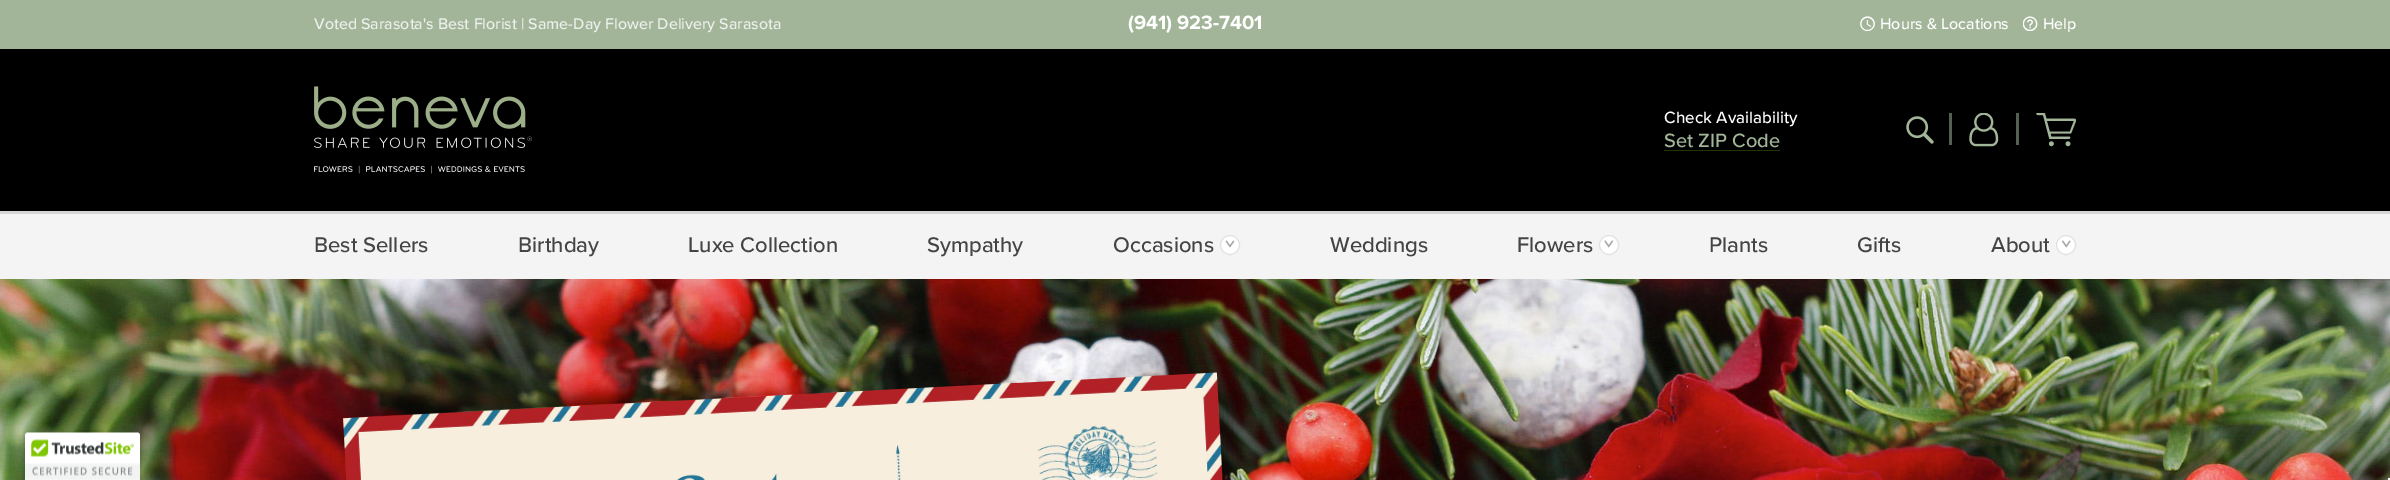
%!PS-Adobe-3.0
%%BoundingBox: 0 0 2390 480
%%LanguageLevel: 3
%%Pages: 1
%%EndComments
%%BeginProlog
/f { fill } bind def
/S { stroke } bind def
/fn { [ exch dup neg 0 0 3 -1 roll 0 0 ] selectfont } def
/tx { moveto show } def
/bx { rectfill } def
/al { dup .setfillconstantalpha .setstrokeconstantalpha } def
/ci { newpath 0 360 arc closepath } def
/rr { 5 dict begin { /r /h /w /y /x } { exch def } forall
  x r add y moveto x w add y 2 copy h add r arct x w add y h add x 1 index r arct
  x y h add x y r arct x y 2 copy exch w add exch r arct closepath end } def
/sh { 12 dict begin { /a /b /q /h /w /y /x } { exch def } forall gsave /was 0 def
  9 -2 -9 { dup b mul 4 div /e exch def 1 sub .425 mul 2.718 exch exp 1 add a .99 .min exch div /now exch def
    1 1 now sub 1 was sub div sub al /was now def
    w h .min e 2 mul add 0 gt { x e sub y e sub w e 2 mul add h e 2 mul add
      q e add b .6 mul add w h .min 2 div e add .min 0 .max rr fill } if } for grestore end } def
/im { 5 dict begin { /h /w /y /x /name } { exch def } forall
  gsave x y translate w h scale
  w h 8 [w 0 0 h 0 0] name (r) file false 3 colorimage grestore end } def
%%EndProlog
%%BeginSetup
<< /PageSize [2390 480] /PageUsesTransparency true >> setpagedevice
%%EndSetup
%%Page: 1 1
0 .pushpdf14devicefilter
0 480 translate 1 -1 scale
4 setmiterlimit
0 setgray
0 0 2390 480 bx
0.635 0.71 0.6 setrgbcolor
0 0 2390 49 bx
/ProximaNova-Medium 16 fn
0.925 0.941 0.922 setrgbcolor
(Voted Sarasota's Best Florist | Same-Day Flower Delivery Sarasota) 314 29 tx
/ProximaNova-Bold 20 fn
1 setgray
(\(941\) 923-7401) 1128 29 tx
(image0.raw) 1860 16 15 15 im
/ProximaNova-Medium 16 fn
(Hours & Locations) 1880 29 tx
(image1.raw) 2023 16 15 15 im
(Help) 2043 29 tx
(image2.raw) 314 86 218 88 im
/ProximaNova-Medium 17 fn
(Check Availability) 1664 123 tx
0.122 0.212 0.016 setrgbcolor
1664 150 116 1 bx
/ProximaNova-Medium 20 fn
0.635 0.71 0.6 setrgbcolor
(Set ZIP Code) 1664 147 tx
(image3.raw) 1906 116 28 28 im
0.333 0.376 0.314 setrgbcolor
1949 113 3 32 bx
(image4.raw) 1969 113 30 34 im
2016 113 3 32 bx
(image5.raw) 2036 113 40 34 im
0.835 setgray
0 211 2390 3 bx
0.957 setgray
0 214 2390 65 bx
/ProximaNova-Medium 22 fn
0.267 setgray
(Best Sellers) 314 252 tx
(Birthday) 518 252 tx
(Luxe Collection) 688 252 tx
(Sympathy) 927 252 tx
(Occasions) 1113 252 tx
1 setgray
1230 245 10 ci f
(image6.raw) 1225 240 10 8 im
0.75 al
0.835 setgray
1230 245 9.5 ci S
1 al
0.267 setgray
(Weddings) 1330 252 tx
(Flowers) 1517 252 tx
1 setgray
1609 245 10 ci f
(image7.raw) 1604 240 10 8 im
0.75 al
0.835 setgray
1609 245 9.5 ci S
1 al
0.267 setgray
(Plants) 1709 252 tx
(Gifts) 1857 252 tx
(About) 1991 252 tx
1 setgray
2066 245 10 ci f
(image8.raw) 2061 240 10 8 im
0.75 al
0.835 setgray
2066 245 9.5 ci S
1 al
(image9.raw) 0 279 2390 201 im
0 setgray
356 398 875 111 0 9.5 0.5 sh
(image10.raw) 343 372 880 108 im
25 433 115 47 2.5 3 0.2 sh
(image11.raw) 25 432 115 48 im
0.961 setgray
2388 478 2 2 bx
.poppdf14devicefilter showpage
%%EOF
